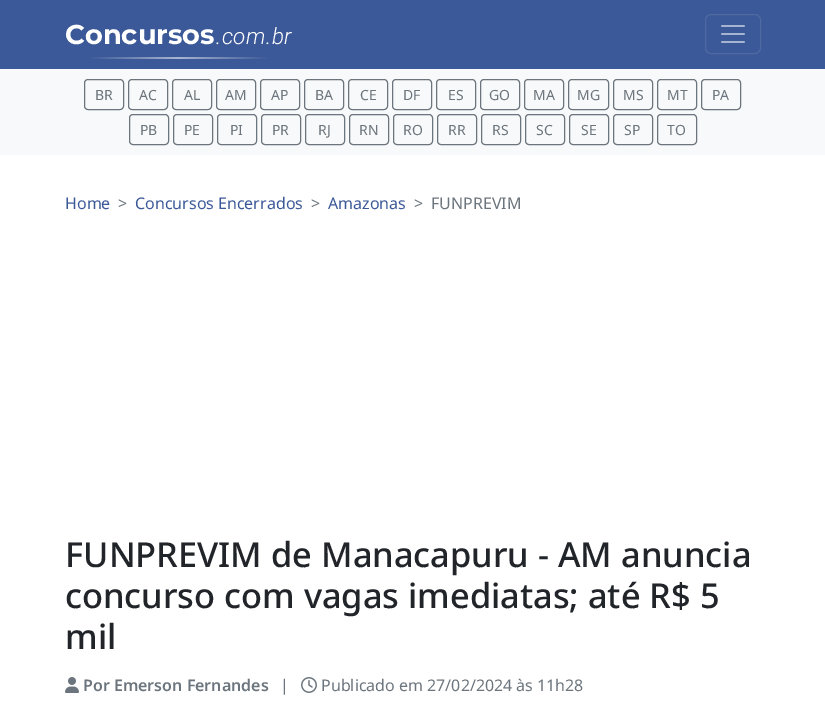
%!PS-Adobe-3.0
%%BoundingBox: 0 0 825 709
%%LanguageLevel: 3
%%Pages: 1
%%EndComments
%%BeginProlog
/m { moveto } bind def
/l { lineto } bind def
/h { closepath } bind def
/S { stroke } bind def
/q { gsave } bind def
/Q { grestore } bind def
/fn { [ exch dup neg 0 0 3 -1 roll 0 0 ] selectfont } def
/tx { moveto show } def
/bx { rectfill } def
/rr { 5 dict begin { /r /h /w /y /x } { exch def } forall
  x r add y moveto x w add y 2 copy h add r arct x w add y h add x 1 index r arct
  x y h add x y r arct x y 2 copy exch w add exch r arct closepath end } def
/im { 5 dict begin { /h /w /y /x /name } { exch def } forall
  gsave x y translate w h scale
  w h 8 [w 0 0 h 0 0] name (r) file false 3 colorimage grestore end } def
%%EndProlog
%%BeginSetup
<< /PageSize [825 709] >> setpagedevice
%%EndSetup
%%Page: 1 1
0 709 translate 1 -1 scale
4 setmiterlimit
1 setgray
0 0 825 709 bx
0.231 0.349 0.596 setrgbcolor
0 0 825 69 bx
/Montserrat-Thin 27.25 fn
1 setgray
(Concursos) 65 44 tx
/Roboto-LightItalic 22.5 fn
216 44 m 0.5 0 (.com.br) ashow
q 90 57 m 267 57 l 267 59 l 90 59 l h clip newpath
<< /ShadingType 2 /ColorSpace /DeviceRGB /Coords [65 58 292 58] /Extend [true true] /Function << /FunctionType 3 /Domain [0 1] /Functions [<< /FunctionType 2 /Domain [0 1] /C0 [0.231 0.349 0.596] /C1 [0.231 0.349 0.596] /N 1 >> << /FunctionType 2 /Domain [0 1] /C0 [0.231 0.349 0.596] /C1 [0.663 0.714 0.82] /N 1 >> << /FunctionType 2 /Domain [0 1] /C0 [0.663 0.714 0.82] /C1 [0.231 0.349 0.596] /N 1 >> << /FunctionType 2 /Domain [0 1] /C0 [0.231 0.349 0.596] /C1 [0.231 0.349 0.596] /N 1 >>] /Bounds [0.1 0.5 0.9] /Encode [0 1 0 1 0 1 0 1] >> >> shfill Q
0.31 0.416 0.635 setrgbcolor
705.5 14.5 55 39 5.5 rr S
(image0.raw) 721 25 24 18 im
0.973 0.976 0.98 setrgbcolor
0 69 825 86 bx
0.424 0.459 0.49 setrgbcolor
84.5 79.5 39 30 3.5 rr S
/NotoSans-Regular 14 fn
(BR) 95 100 tx
128.5 79.5 39 30 3.5 rr S
(AC) 139 100 tx
172.5 79.5 39 30 3.5 rr S
(AL) 184 100 tx
216.5 79.5 39 30 3.5 rr S
(AM) 225 100 tx
260.5 79.5 39 30 3.5 rr S
(AP) 271 100 tx
304.5 79.5 39 30 3.5 rr S
(BA) 315 100 tx
348.5 79.5 39 30 3.5 rr S
(CE) 360 100 tx
392.5 79.5 39 30 3.5 rr S
(DF) 403 100 tx
436.5 79.5 39 30 3.5 rr S
(ES) 448 100 tx
480.5 79.5 39 30 3.5 rr S
(GO) 489 100 tx
524.5 79.5 39 30 3.5 rr S
(MA) 533 100 tx
568.5 79.5 40 30 3.5 rr S
(MG) 577 100 tx
613.5 79.5 39 30 3.5 rr S
(MS) 623 100 tx
657.5 79.5 39 30 3.5 rr S
(MT) 667 100 tx
701.5 79.5 39 30 3.5 rr S
(PA) 712 100 tx
129.5 114.5 39 30 3.5 rr S
(PB) 140 135 tx
173.5 114.5 39 30 3.5 rr S
(PE) 184 135 tx
217.5 114.5 39 30 3.5 rr S
(PI) 230 135 tx
261.5 114.5 39 30 3.5 rr S
(PR) 272 135 tx
305.5 114.5 39 30 3.5 rr S
(RJ) 318 135 tx
349.5 114.5 39 30 3.5 rr S
(RN) 359 135 tx
393.5 114.5 39 30 3.5 rr S
(RO) 403 135 tx
437.5 114.5 39 30 3.5 rr S
(RR) 448 135 tx
481.5 114.5 39 30 3.5 rr S
(RS) 492 135 tx
525.5 114.5 39 30 3.5 rr S
(SC) 536 135 tx
569.5 114.5 39 30 3.5 rr S
(SE) 581 135 tx
613.5 114.5 39 30 3.5 rr S
(SP) 624 135 tx
657.5 114.5 39 30 3.5 rr S
(TO) 667 135 tx
/NotoSans-Regular 16 fn
0.231 0.349 0.596 setrgbcolor
(Home) 65 209 tx
0.424 0.459 0.49 setrgbcolor
(>) 118 209 tx
0.231 0.349 0.596 setrgbcolor
(Concursos Encerrados) 135 209 tx
0.424 0.459 0.49 setrgbcolor
(>) 311 209 tx
0.231 0.349 0.596 setrgbcolor
(Amazonas) 328 209 tx
0.424 0.459 0.49 setrgbcolor
(>) 414 209 tx
(FUNPREVIM) 431 209 tx
/NotoSans-Medium 34.4 fn
0.129 0.145 0.161 setrgbcolor
(FUNPREVIM de Manacapuru - AM anuncia) 65 567 tx
(concurso com vagas imediatas; até R$ 5) 65 608 tx
(mil) 65 649 tx
(image1.raw) 65 677 14 16 im
/NotoSans-SemiBold 16 fn
0.424 0.459 0.49 setrgbcolor
(Por Emerson Fernandes) 83 691 tx
/NotoSans-Regular 16 fn
(|) 280 691 tx
(image2.raw) 301 677 16 16 im
(Publicado em 27/02/2024 às 11h28) 321 691 tx
showpage
%%EOF
